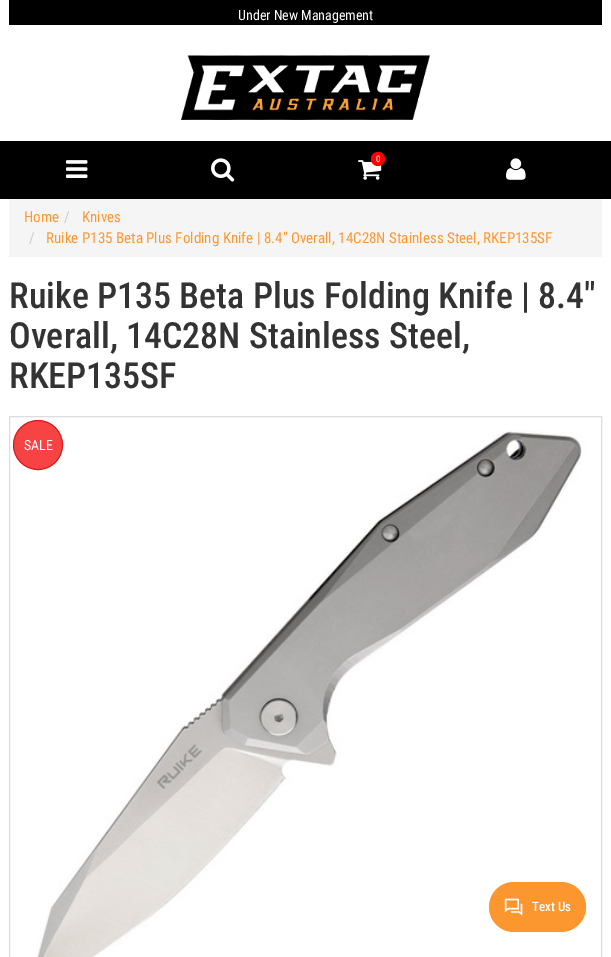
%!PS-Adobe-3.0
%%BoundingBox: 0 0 611 957
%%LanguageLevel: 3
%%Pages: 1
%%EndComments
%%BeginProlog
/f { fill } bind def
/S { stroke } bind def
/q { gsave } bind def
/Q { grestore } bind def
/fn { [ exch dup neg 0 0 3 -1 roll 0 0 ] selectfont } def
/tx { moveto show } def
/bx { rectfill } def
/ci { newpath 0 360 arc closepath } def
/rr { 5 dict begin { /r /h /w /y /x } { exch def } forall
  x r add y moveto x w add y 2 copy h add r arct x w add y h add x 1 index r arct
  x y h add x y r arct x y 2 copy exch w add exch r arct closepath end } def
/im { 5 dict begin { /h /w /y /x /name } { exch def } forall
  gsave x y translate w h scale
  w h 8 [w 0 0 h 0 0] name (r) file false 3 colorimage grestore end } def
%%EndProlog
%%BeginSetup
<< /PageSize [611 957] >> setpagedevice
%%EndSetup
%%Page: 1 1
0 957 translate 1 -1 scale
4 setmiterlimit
1 setgray
0 0 611 957 bx
0 setgray
9 0 593 25 bx
/RobotoCondensed-Regular 14 fn
1 setgray
(Under New Management) 238 20 tx
(image0.raw) 181 55 249 65 im
0 setgray
0 141 611 58 bx
(image1.raw) 66 160 22 18 im
(image2.raw) 211 158 24 24 im
(image3.raw) 358 160 24 20 im
1 0 0 setrgbcolor
378 159 7 ci f
/RobotoCondensed-Regular 9 fn
1 setgray
(0) 376 162 tx
(image4.raw) 506 158 20 22 im
0.961 setgray
9 199 593 58 bx
/RobotoCondensed-Regular 15 fn
1 0.592 0.188 setrgbcolor
(Home) 24 222 tx
0.8 setgray
(/) 64 222 tx
1 0.592 0.188 setrgbcolor
(Knives) 82 222 tx
0.8 setgray
(/) 29 243 tx
1 0.592 0.188 setrgbcolor
(Ruike P135 Beta Plus Folding Knife | 8.4" Overall, 14C28N Stainless Steel, RKEP135SF) 46 243 tx
/RobotoCondensed-Medium 36 fn
0.2 setgray
(Ruike P135 Beta Plus Folding Knife | 8.4") 9 308 tx
(Overall, 14C28N Stainless Steel,) 9 348 tx
(RKEP135SF) 9 388 tx
0.867 setgray
9.5 416.5 592 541 rectstroke
(image5.raw) 37 430 545 527 im
0.969 0.263 0.263 setrgbcolor
38 445 24.5 ci q f Q
0.835 0.122 0.122 setrgbcolor
S
/RobotoCondensed-Regular 14 fn
1 setgray
(SALE) 24 450 tx
0.988 0.592 0.188 setrgbcolor
489 882 97 50 25 rr f
(image6.raw) 504 898 19 18 im
/RobotoCondensed-Medium 13 fn
1 setgray
(Text Us) 532 911 tx
showpage
%%EOF
